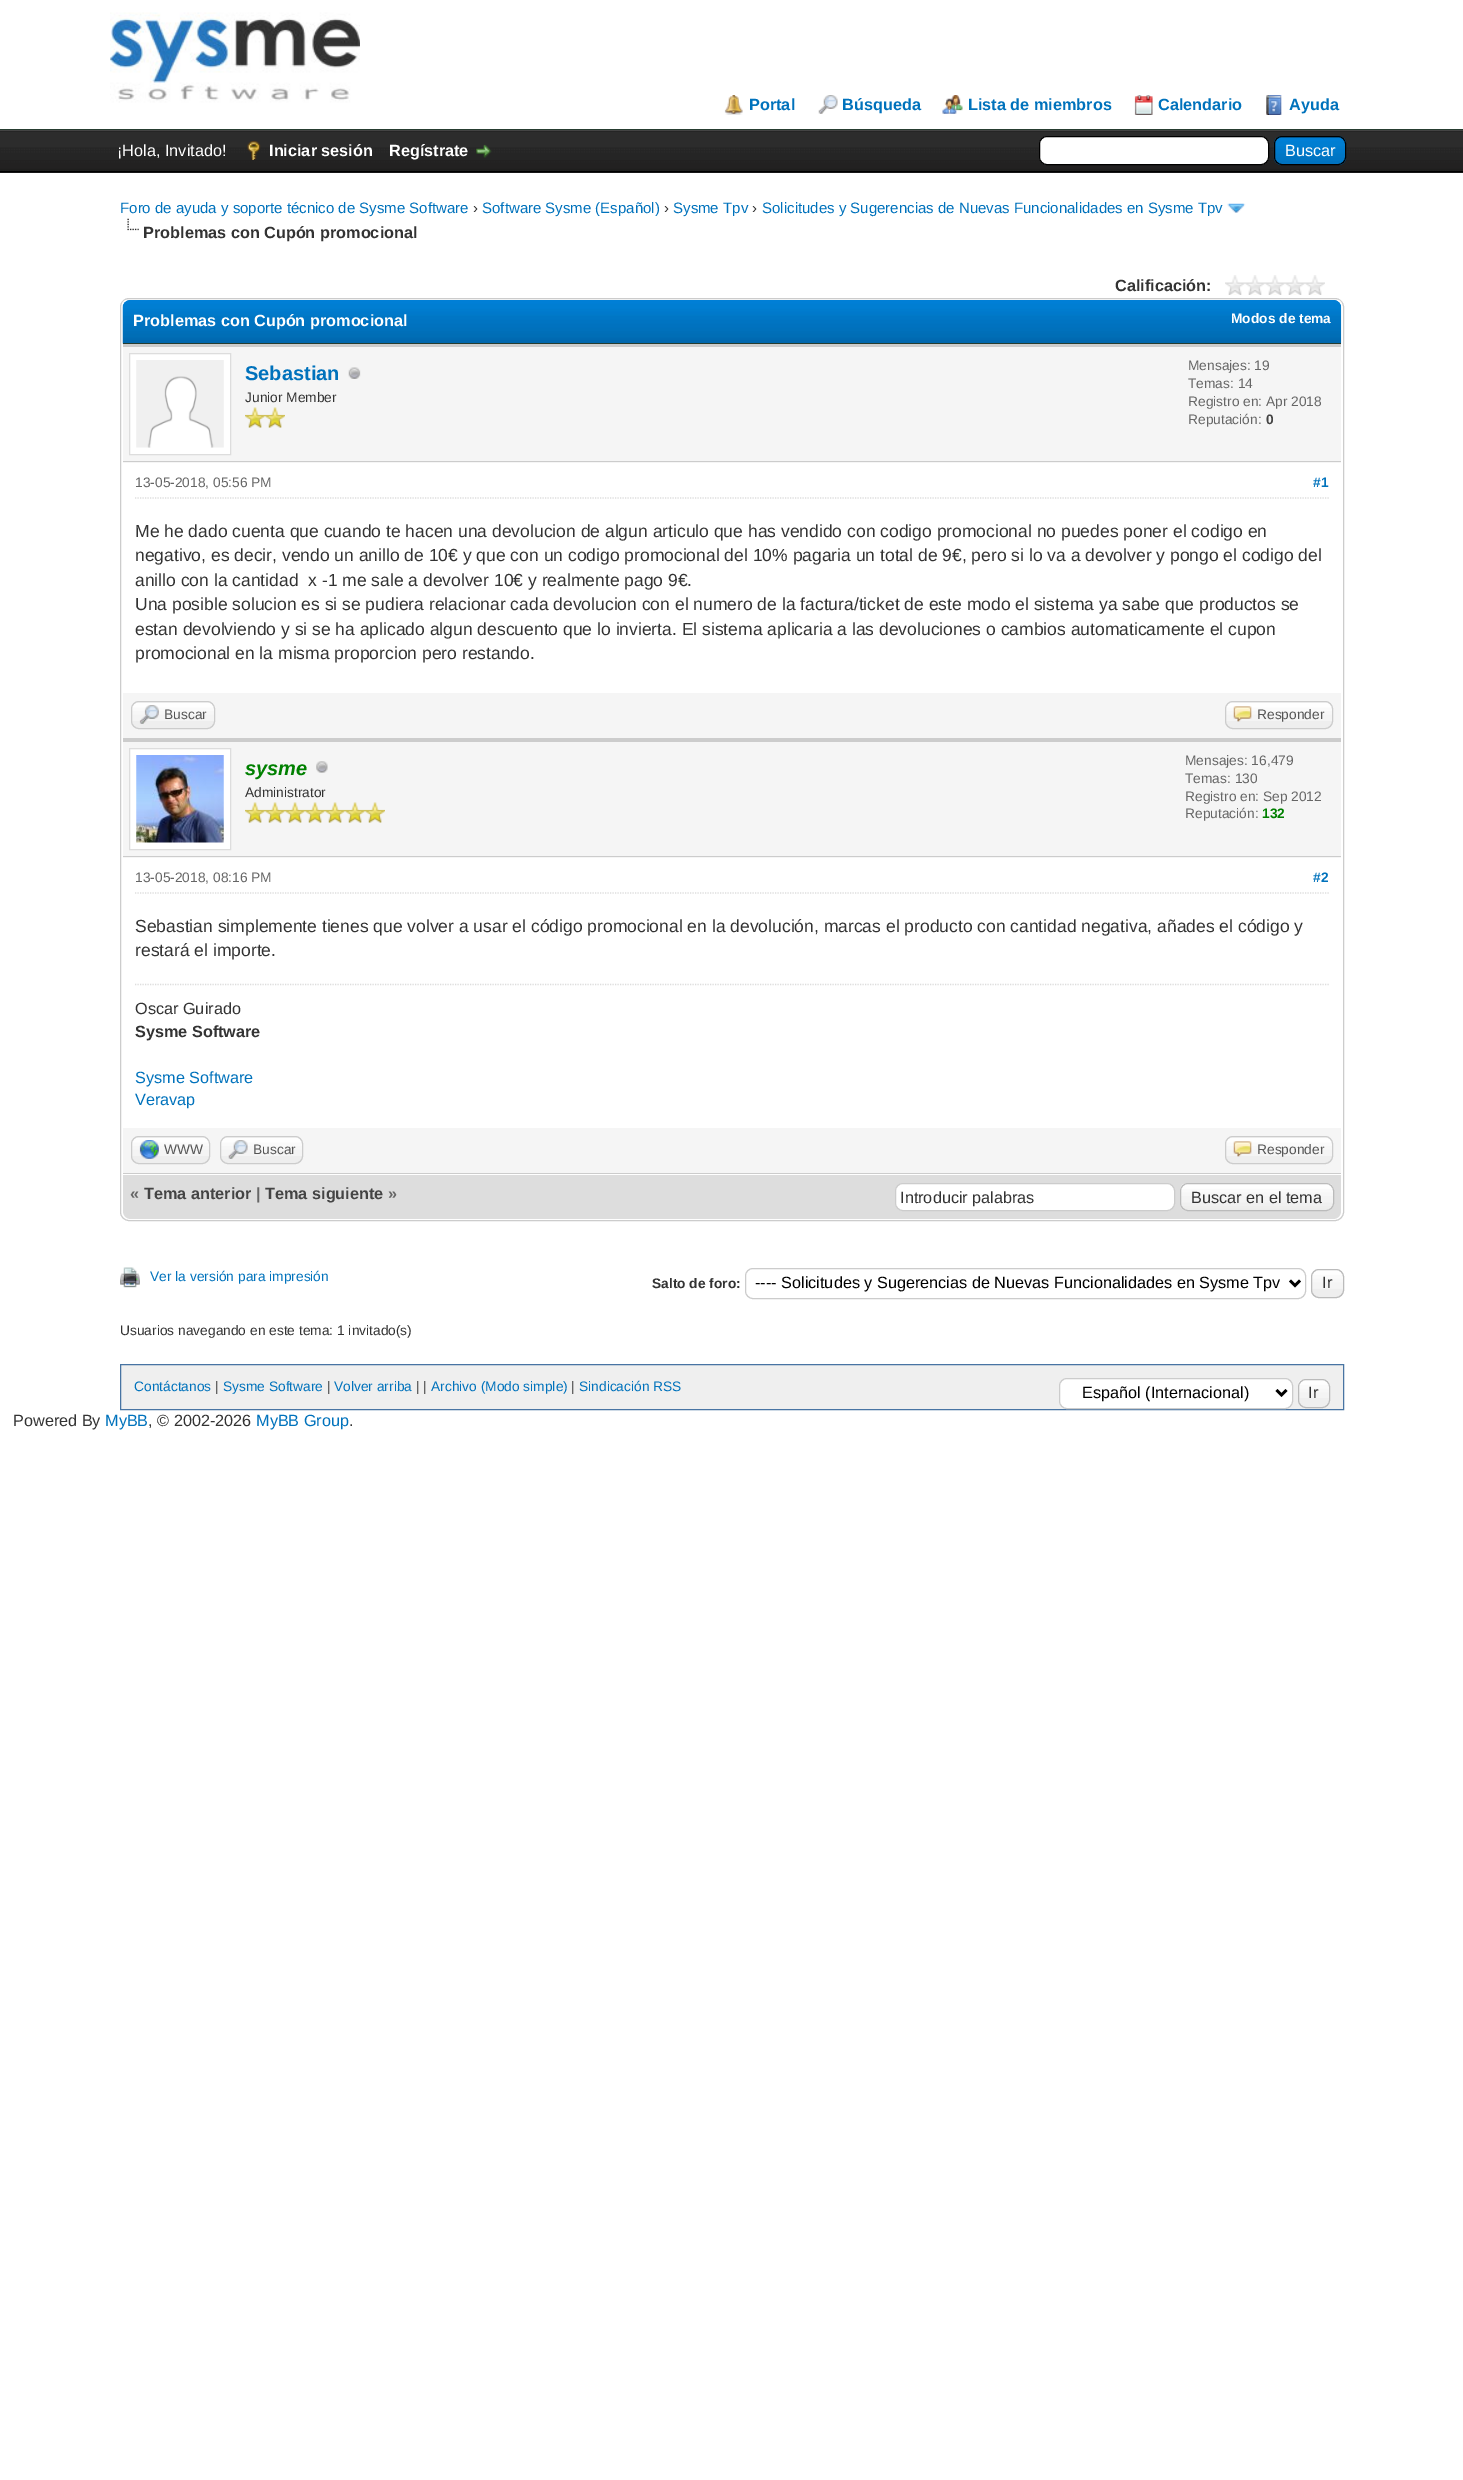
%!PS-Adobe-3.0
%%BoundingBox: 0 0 1463 2480
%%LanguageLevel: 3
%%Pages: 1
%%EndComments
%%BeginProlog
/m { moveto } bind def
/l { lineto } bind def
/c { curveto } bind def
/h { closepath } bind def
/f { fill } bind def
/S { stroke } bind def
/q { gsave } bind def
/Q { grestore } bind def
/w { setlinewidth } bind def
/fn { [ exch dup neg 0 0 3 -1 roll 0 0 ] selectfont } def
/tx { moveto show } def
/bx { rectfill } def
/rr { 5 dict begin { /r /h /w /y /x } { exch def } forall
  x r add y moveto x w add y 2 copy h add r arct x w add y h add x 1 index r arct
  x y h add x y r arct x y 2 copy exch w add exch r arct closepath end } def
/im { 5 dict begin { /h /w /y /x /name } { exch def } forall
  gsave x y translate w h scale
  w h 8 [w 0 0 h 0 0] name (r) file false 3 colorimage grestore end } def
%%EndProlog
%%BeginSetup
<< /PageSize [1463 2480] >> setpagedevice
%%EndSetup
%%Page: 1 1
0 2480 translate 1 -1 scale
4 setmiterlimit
1 setgray
0 0 1463 2480 bx
0.149 0.235 0.188 setrgbcolor
0 129 1463 1 bx
(image0.raw) 110 12 250 91 im
(image1.raw) 724 95 19 20 im
/LiberationSans-Bold 16.25 fn
0 0.447 0.737 setrgbcolor
(Portal) 749 110 tx
(image2.raw) 818 95 20 19 im
(Búsqueda) 842 110 tx
(image3.raw) 942 95 21 19 im
(Lista de miembros) 968 110 tx
(image4.raw) 1134 95 19 20 im
(Calendario) 1158 110 tx
(image5.raw) 1266 95 16 20 im
(Ayuda) 1289 110 tx
0.059 setgray
0 131 1463 42 bx
(image6.raw) 0 131 1463 42 im
0.267 setgray
0 130 1463 1 bx
0 setgray
0 171 1463 1 bx
/LiberationSans-Regular 16.25 fn
1 setgray
(¡Hola, Invitado!) 117 156 tx
(image7.raw) 247 141 14 19 im
/LiberationSans-Bold 16.25 fn
(Iniciar sesión) 269 156 tx
(Regístrate) 389 156 tx
(image8.raw) 476 144 16 14 im
1039.5 136.5 229 28 7.5 rr q f Q
0 setgray
S
0 0.4 0.635 setrgbcolor
1274 136 72 29 8 rr f
(image9.raw) 1273 137 74 28 im
0 setgray
1274.5 136.5 71 28 7.5 rr S
/LiberationSans-Regular 16.25 fn
1 setgray
(Buscar) 1285 156 tx
/LiberationSans-Regular 15 fn
0 0.447 0.737 setrgbcolor
(Foro de ayuda y soporte técnico de Sysme Software) 120 213 tx
0.2 setgray
(›) 473 213 tx
0 0.447 0.737 setrgbcolor
(Software Sysme \(Español\)) 482 213 tx
0.2 setgray
(›) 664 213 tx
0 0.447 0.737 setrgbcolor
(Sysme Tpv) 673 213 tx
0.2 setgray
(›) 752 213 tx
0 0.447 0.737 setrgbcolor
(Solicitudes y Sugerencias de Nuevas Funcionalidades en Sysme Tpv) 762 213 tx
(image10.raw) 1227 203 19 10 im
(image11.raw) 127 218 12 13 im
/LiberationSans-Bold 16.25 fn
0.2 setgray
(Problemas con Cupón promocional) 143 238 tx
(Calificación:) 1115 291 tx
(image12.raw) 1225 275 100 20 im
0.8 setgray
120.5 298.5 1223 922 8.5 rr S
(image13.raw) 122 300 1220 44 im
0.149 0.235 0.188 setrgbcolor
123 343 1218 1 bx
1 setgray
(Problemas con Cupón promocional) 133 326 tx
/LiberationSans-Bold 13.75 fn
(Modos de tema) 1231 323 tx
0.961 setgray
123 347 1218 116 bx
0.8 setgray
123 344 1218 3 bx
123 461 1218 1 bx
1 setgray
129.5 353.5 m 230.5 353.5 l 230.5 454.5 l 129.5 454.5 l h q f Q
0.867 setgray
S
(image14.raw) 136 360 88 88 im
/LiberationSans-Bold 20 fn
0 0.447 0.737 setrgbcolor
(Sebastian) 245 380 tx
(image15.raw) 348 367 13 12 im
/LiberationSans-Regular 13.75 fn
0.2 setgray
(Junior Member) 245 402 tx
(image16.raw) 245 407 20 21 im
(image17.raw) 265 407 20 21 im
0.4 setgray
(Mensajes: 19) 1188 370 tx
(Temas: 14) 1188 388 tx
(Registro en: Apr 2018) 1188 406 tx
(Reputación:) 1188 424 tx
/LiberationSans-Bold 13.75 fn
0.267 setgray
(0) 1266 424 tx
0.867 setgray
1.2 w
[1.25 1.25] 0 setdash
135 498 m 1329 498 l S
/LiberationSans-Regular 13.75 fn
0.4 setgray
(13-05-2018, 05:56 PM) 135 487 tx
/LiberationSans-Bold 13.75 fn
0 0.447 0.737 setrgbcolor
(#1) 1313 487 tx
/LiberationSans-Regular 17.5 fn
0.2 setgray
(Me he dado cuenta que cuando te hacen una devolucion de algun articulo que has vendido con codigo promocional no puedes poner el codigo en) 135 537 tx
(negativo, es decir, vendo un anillo de 10€ y que con un codigo promocional del 10% pagaria un total de 9€, pero si lo va a devolver y pongo el codigo del) 135 561 tx
(anillo con la cantidad  x -1 me sale a devolver 10€ y realmente pago 9€.) 135 586 tx
(Una posible solucion es si se pudiera relacionar cada devolucion con el numero de la factura/ticket de este modo el sistema ya sabe que productos se) 135 610 tx
(estan devolviendo y si se ha aplicado algun descuento que lo invierta. El sistema aplicaria a las devoluciones o cambios automaticamente el cupon) 135 635 tx
(promocional en la misma proporcion pero restando.) 135 659 tx
0.961 setgray
123 693 1218 45 bx
0.8 setgray
123 738 1218 4 bx
0.933 setgray
131 701 84 28 8 rr f
(image18.raw) 131 702 84 19 im
0.8 setgray
1 w
[] 0 setdash
131.5 701.5 83 27 7.5 rr S
(image19.raw) 139 705 20 19 im
/LiberationSans-Regular 13.75 fn
0.333 setgray
(Buscar) 164 719 tx
0.933 setgray
1225 701 108 28 8 rr f
(image20.raw) 1225 702 107 19 im
0.8 setgray
1225.5 701.5 107 27 7.5 rr S
(image21.raw) 1233 706 19 16 im
0.333 setgray
(Responder) 1257 719 tx
0.961 setgray
123 742 1218 116 bx
0.8 setgray
123 856 1218 1 bx
1 setgray
129.5 748.5 m 230.5 748.5 l 230.5 849.5 l 129.5 849.5 l h q f Q
0.867 setgray
S
(image22.raw) 136 755 88 88 im
/LiberationSans-BoldItalic 20 fn
0 0.502 0 setrgbcolor
(sysme) 245 775 tx
(image23.raw) 316 761 12 12 im
/LiberationSans-Regular 13.75 fn
0.2 setgray
(Administrator) 245 797 tx
(image16.raw) 245 802 20 21 im
(image17.raw) 265 802 20 21 im
(image17.raw) 285 802 20 21 im
(image16.raw) 305 802 20 21 im
(image16.raw) 325 802 20 21 im
(image16.raw) 345 802 20 21 im
(image16.raw) 365 802 20 21 im
0.4 setgray
(Mensajes: 16,479) 1185 765 tx
(Temas: 130) 1185 783 tx
(Registro en: Sep 2012) 1185 801 tx
(Reputación:) 1185 818 tx
/LiberationSans-Bold 13.75 fn
0 0.502 0 setrgbcolor
(132) 1262 818 tx
0.867 setgray
1.2 w
[1.25 1.25] 0 setdash
135 893 m 1329 893 l S
/LiberationSans-Regular 13.75 fn
0.4 setgray
(13-05-2018, 08:16 PM) 135 882 tx
/LiberationSans-Bold 13.75 fn
0 0.447 0.737 setrgbcolor
(#2) 1313 882 tx
/LiberationSans-Regular 17.5 fn
0.2 setgray
(Sebastian simplemente tienes que volver a usar el código promocional en la devolución, marcas el producto con cantidad negativa, añades el código y) 135 932 tx
(restará el importe.) 135 956 tx
0.867 setgray
135 984.5 m 1329 984.5 l S
/LiberationSans-Regular 16.25 fn
0.2 setgray
(Oscar Guirado) 135 1014 tx
/LiberationSans-Bold 16.25 fn
(Sysme Software) 135 1037 tx
/LiberationSans-Regular 16.25 fn
0 0.447 0.737 setrgbcolor
(Sysme Software) 135 1083 tx
(Veravap) 135 1105 tx
0.961 setgray
123 1128 1218 45 bx
0.8 setgray
123 1173 1218 1 bx
0.933 setgray
131 1136 79 28 8 rr f
(image24.raw) 131 1137 79 19 im
0.8 setgray
1 w
[] 0 setdash
131.5 1136.5 78 27 7.5 rr S
(image25.raw) 139 1140 20 19 im
/LiberationSans-Regular 13.75 fn
0.333 setgray
(WWW) 164 1154 tx
0.933 setgray
220 1136 83 28 8 rr f
(image26.raw) 220 1137 82 19 im
0.8 setgray
220.5 1136.5 82 27 7.5 rr S
(image27.raw) 228 1140 20 19 im
0.333 setgray
(Buscar) 253 1154 tx
0.933 setgray
1225 1136 108 28 8 rr f
(image20.raw) 1225 1137 107 19 im
0.8 setgray
1225.5 1136.5 107 27 7.5 rr S
(image21.raw) 1233 1141 19 16 im
0.333 setgray
(Responder) 1257 1154 tx
0.867 setgray
123 1174 m 1341 1174 l 1341 1211 l 1341 1215.5 1337.5 1219 1333 1219 c 131 1219 l 126.5 1219 123 1215.5 123 1211 c h f
1 setgray
123 1174 1218 1 bx
/LiberationSans-Bold 16.25 fn
0.4 setgray
(«) 130 1199 tx
0.267 setgray
(Tema anterior) 144 1199 tx
0.4 setgray
(|) 256 1199 tx
0.267 setgray
(Tema siguiente) 265 1199 tx
0.4 setgray
(») 388 1199 tx
1 setgray
895.5 1183.5 279 27 7.5 rr q f Q
0.8 setgray
S
/LiberationSans-Regular 16.25 fn
0.2 setgray
(Introducir palabras) 900 1203 tx
(image28.raw) 1180 1183 154 28 im
0.733 setgray
1180.5 1183.5 153 27 7.5 rr S
0.2 setgray
(Buscar en el tema) 1191 1203 tx
(image29.raw) 120 1267 20 21 im
/LiberationSans-Regular 13.75 fn
0 0.447 0.737 setrgbcolor
(Ver la versión para impresión) 150 1281 tx
/LiberationSans-Bold 13.75 fn
0.2 setgray
(Salto de foro:) 652 1288 tx
0.8 setgray
745.5 1268.5 560 30 7.5 rr S
0 setgray
2.5 w
1290 1280.5 m 1295 1285.5 l 1300 1280.5 l S
/LiberationSans-Regular 16.25 fn
(---- Solicitudes y Sugerencias de Nuevas Funcionalidades en Sysme Tpv) 755 1288 tx
0.933 setgray
1311 1269 33 29 8 rr f
(image30.raw) 1311 1270 33 19 im
0.733 setgray
1 w
1311.5 1269.5 32 28 7.5 rr S
0.2 setgray
(Ir) 1322 1288 tx
/LiberationSans-Regular 13.75 fn
(Usuarios navegando en este tema: 1 invitado\(s\)) 120 1335 tx
0.937 setgray
120.5 1364.5 m 1343.5 1364.5 l 1343.5 1409.5 l 120.5 1409.5 l h q f Q
0.282 0.455 0.639 setrgbcolor
S
0 0.447 0.737 setrgbcolor
(Contáctanos) 134 1391 tx
0.2 setgray
(|) 215 1391 tx
0 0.447 0.737 setrgbcolor
(Sysme Software) 223 1391 tx
0.2 setgray
(|) 327 1391 tx
0 0.447 0.737 setrgbcolor
(Volver arriba) 334 1391 tx
0.2 setgray
(| |) 416 1391 tx
0 0.447 0.737 setrgbcolor
(Archivo \(Modo simple\)) 431 1391 tx
0.2 setgray
(|) 571 1391 tx
0 0.447 0.737 setrgbcolor
(Sindicación RSS) 579 1391 tx
1 setgray
1059.5 1378.5 233 30 7.5 rr q f Q
0.8 setgray
S
0 setgray
2.5 w
1276.5 1390 m 1281.5 1395 l 1286.5 1390 l S
/LiberationSans-Regular 16.25 fn
(Español \(Internacional\)) 1082 1398 tx
(image31.raw) 1298 1380 32 18 im
0.733 setgray
1 w
1298.5 1379.5 31 28 7.5 rr S
0.2 setgray
(Ir) 1308 1398 tx
(Powered By) 13 1426 tx
0 0.447 0.737 setrgbcolor
(MyBB) 105 1426 tx
0.2 setgray
(, © 2002-2026) 148 1426 tx
0 0.447 0.737 setrgbcolor
(MyBB Group) 256 1426 tx
0.2 setgray
(.) 349 1426 tx
showpage
%%EOF
